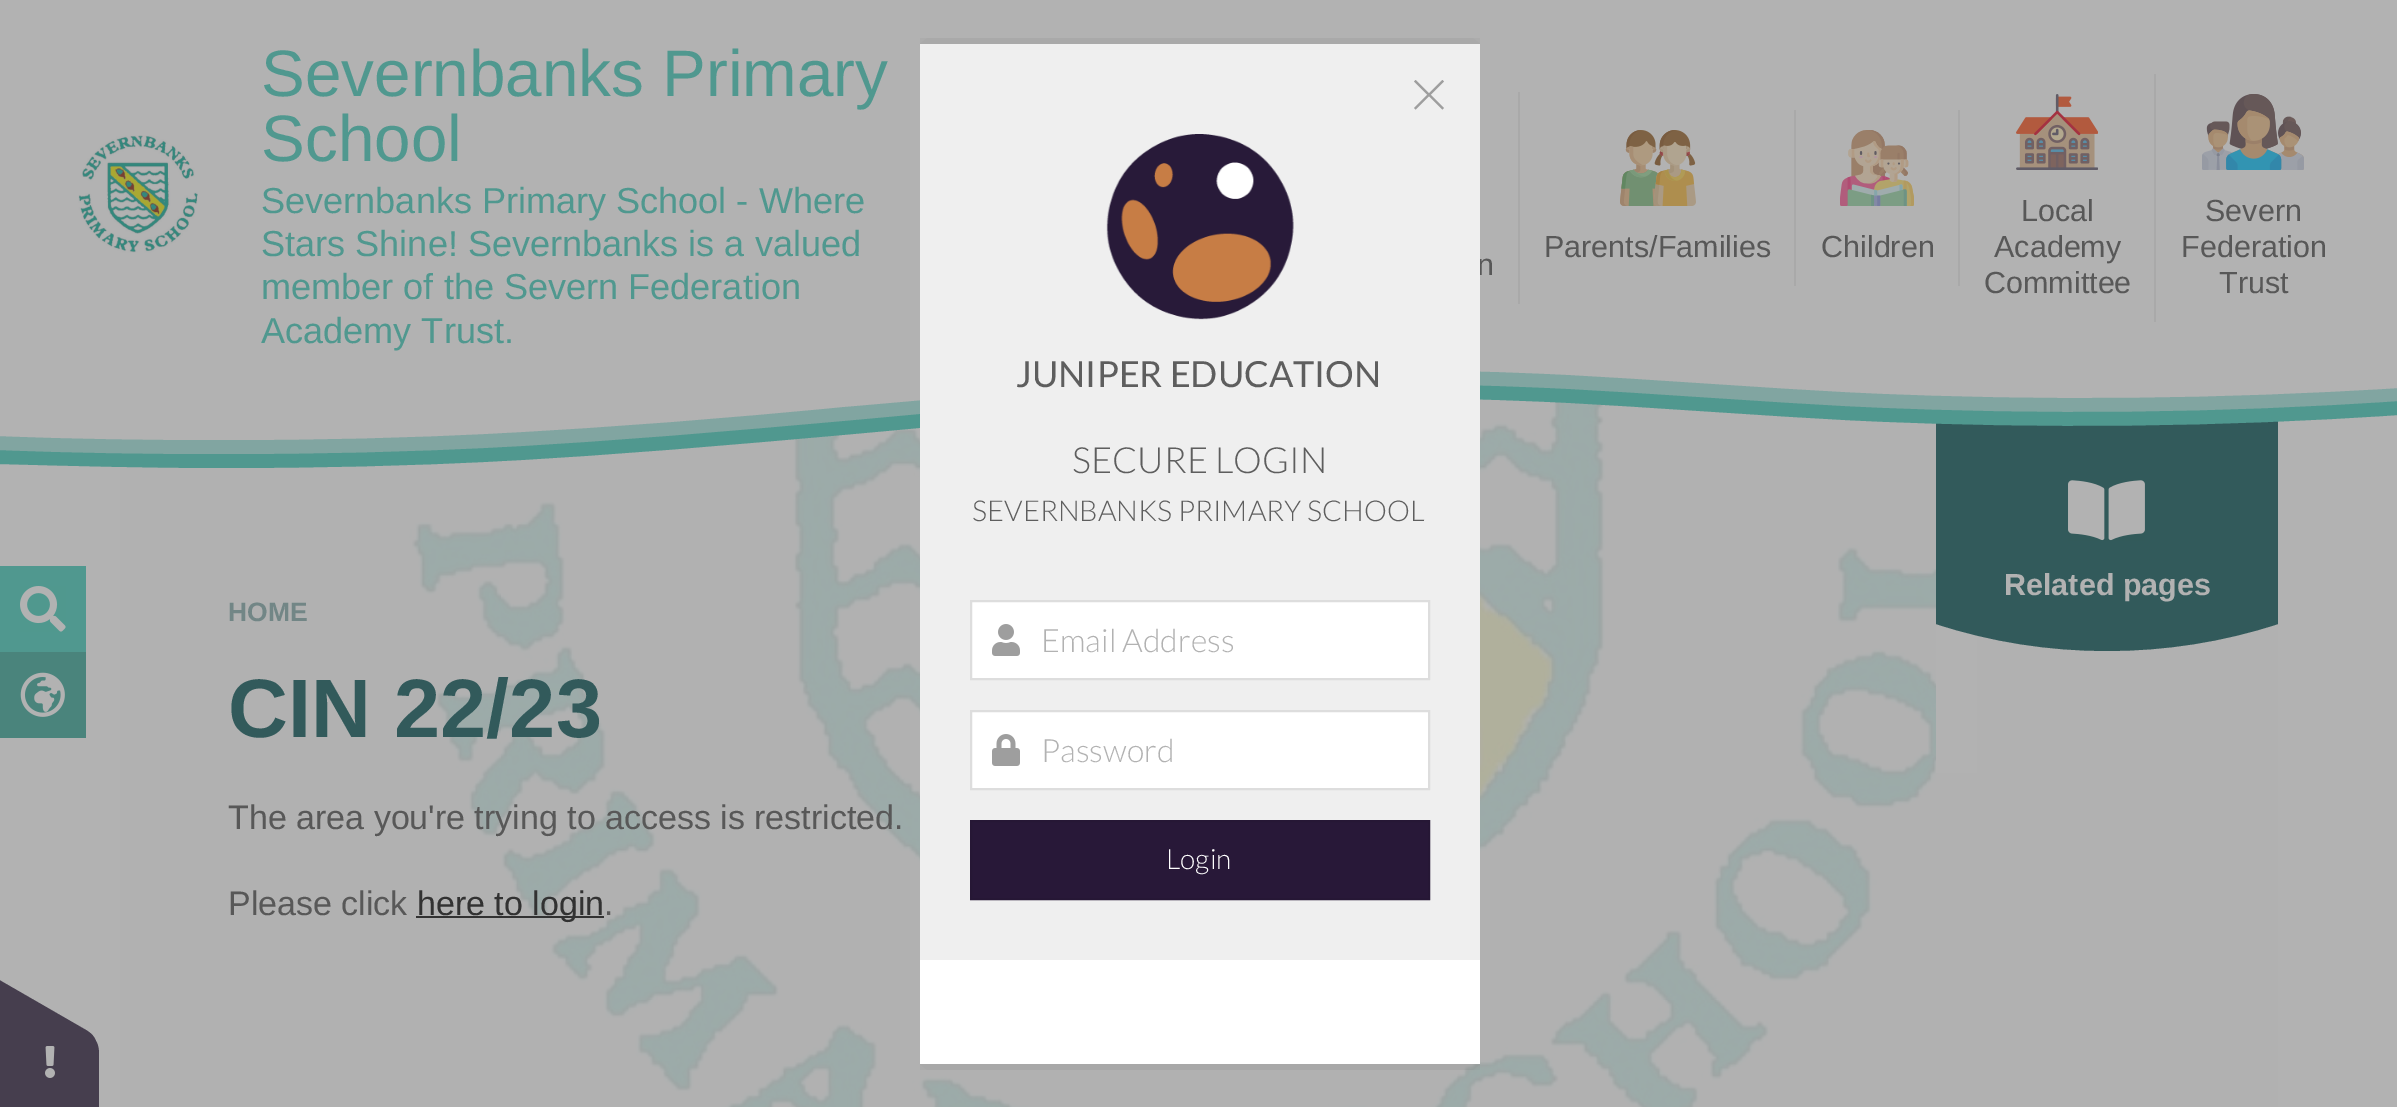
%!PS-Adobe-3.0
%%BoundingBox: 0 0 2397 1107
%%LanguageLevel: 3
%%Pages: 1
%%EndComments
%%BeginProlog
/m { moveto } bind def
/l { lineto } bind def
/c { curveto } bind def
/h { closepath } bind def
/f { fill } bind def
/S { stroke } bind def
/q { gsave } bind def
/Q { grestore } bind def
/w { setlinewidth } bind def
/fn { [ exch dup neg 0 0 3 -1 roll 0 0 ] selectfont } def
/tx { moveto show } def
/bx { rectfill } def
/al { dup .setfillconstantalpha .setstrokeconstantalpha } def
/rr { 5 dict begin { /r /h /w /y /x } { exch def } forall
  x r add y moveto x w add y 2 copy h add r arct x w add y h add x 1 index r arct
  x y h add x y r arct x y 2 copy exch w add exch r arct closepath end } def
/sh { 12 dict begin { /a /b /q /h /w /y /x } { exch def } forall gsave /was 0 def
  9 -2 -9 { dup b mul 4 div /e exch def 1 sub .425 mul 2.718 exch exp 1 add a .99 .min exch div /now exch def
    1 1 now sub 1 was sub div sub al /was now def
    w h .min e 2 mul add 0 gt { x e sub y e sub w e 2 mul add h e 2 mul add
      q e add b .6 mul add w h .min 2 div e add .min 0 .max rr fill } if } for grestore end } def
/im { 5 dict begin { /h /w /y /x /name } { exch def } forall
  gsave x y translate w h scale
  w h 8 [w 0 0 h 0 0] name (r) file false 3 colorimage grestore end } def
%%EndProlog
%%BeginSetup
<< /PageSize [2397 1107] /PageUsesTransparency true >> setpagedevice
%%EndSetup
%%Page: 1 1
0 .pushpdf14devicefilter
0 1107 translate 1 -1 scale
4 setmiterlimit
0.698 setgray
0 0 2397 1107 bx
(image0.raw) 78 135 120 118 im
/LiberationSans-Regular 65.6 fn
0.314 0.596 0.561 setrgbcolor
(Severnbanks Primary) 261 96 tx
(School) 261 161 tx
/LiberationSans-Regular 36.1 fn
(Severnbanks Primary School - Where) 261 213 tx
(Stars Shine! Severnbanks is a valued) 261 256 tx
(member of the Severn Federation) 261 299 tx
(image7.raw) 0 399 2397 708 im
0.196 0.353 0.357 setrgbcolor
1936 421 342 181 bx
0.314 0.596 0.561 setrgbcolor
223 468 m 149 468 74 466 0 464 c 0 352 l 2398 352 l 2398 415 l 2221 427 2043 429 1866 421 c 1760 416 1655 407 1550 402 c 1482 399 1414 397 1346 398 c 1177 402 1010 420 842 435 c 729 445 616 455 502 461 c 410 466 316 468 223 468 c h f
0.5 al
0.698 setgray
223 454 m 149 454 74 453 0 450 c 0 338 l 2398 338 l 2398 401 l 2221 413 2043 415 1866 407 c 1760 402 1655 393 1550 388 c 1482 385 1414 383 1346 384 c 1177 388 1010 406 842 421 c 729 431 616 441 502 447 c 410 452 316 454 223 454 c h f
1 al
223 440 m 149 440 74 439 0 436 c 0 324 l 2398 324 l 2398 388 l 2221 399 2043 401 1866 393 c 1760 388 1655 379 1550 374 c 1482 371 1414 369 1346 371 c 1177 374 1010 393 842 407 c 729 418 616 427 502 433 c 410 438 316 440 223 440 c h f
0.314 0.596 0.561 setrgbcolor
(Academy Trust.) 261 343 tx
0 566 86 86 bx
(image1.raw) 20 586 46 46 im
0.29 0.518 0.486 setrgbcolor
0 652 86 86 bx
(image2.raw) 20 672 45 45 im
0.663 setgray
1794 110 2 176 bx
(image3.raw) 1620 130 76 76 im
/LiberationSans-Regular 30.5 fn
0.345 setgray
(Parents/Families) 1544 257 tx
0.663 setgray
1958 110 2 176 bx
(image4.raw) 1840 130 74 76 im
0.345 setgray
(Children) 1821 257 tx
0.663 setgray
2154 74 2 248 bx
(image5.raw) 2016 94 82 76 im
0.345 setgray
(Local) 2021 221 tx
(Academy) 1994 257 tx
(Committee) 1984 293 tx
(image6.raw) 2202 94 102 76 im
(Severn) 2205 221 tx
(Federation) 2181 257 tx
(Trust) 2219 293 tx
0.663 setgray
1518 92 2 212 bx
0.345 setgray
(n) 1477 275 tx
0.698 setgray
1936 624 41 149 bx
(image8.raw) 2068 480 77 61 im
/LiberationSans-Bold 30.5 fn
(Related pages) 2004 595 tx
q
1936 602 342 49 rectclip
0.196 0.353 0.357 setrgbcolor
2278 600 m 1936 600 l 1936 624 l 2046 660 2168 660 2278 624 c h f
Q
/LiberationSans-Bold 26.5 fn
0.447 0.525 0.525 setrgbcolor
(HOME) 228 621 tx
/LiberationSans-Bold 83 fn
0.196 0.353 0.357 setrgbcolor
(CIN 22/23) 228 737 tx
/LiberationSans-Regular 34 fn
0.345 setgray
(The area you're trying to access is restricted.) 228 829 tx
(Please click) 228 915 tx
0.196 setgray
416 916 188 2 bx
(here to login) 417 915 tx
0.345 setgray
(.) 604 915 tx
q
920 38 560 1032 rectclip
0 setgray
920 44 560 1020 0 50 0.1 sh
Q
0.937 setgray
920 44 560 916 bx
0.62 setgray
1415.5 80 m 1444 108 l 1442.5 109.5 l 1414 81.5 l h f
1444 81.5 m 1415.5 109.5 l 1414 108 l 1442.5 80 l h f
(image9.raw) 1106 134 188 186 im
/Lato-Regular 36 fn
0.369 setgray
(JUNIPER EDUCATION) 1016 387 tx
/Lato-Light 36 fn
(SECURE LOGIN) 1072 473 tx
/Lato-Light 28.75 fn
(SEVERNBANKS PRIMARY SCHOOL) 972 521 tx
1 setgray
971 601 m 1429 601 l 1429 679 l 971 679 l h q f Q
0.867 setgray
2 w
S
(image10.raw) 992 624 28 32 im
/Lato-Light 32 fn
0.698 setgray
(Email Address) 1041 652 tx
1 setgray
971 711 m 1429 711 l 1429 789 l 971 789 l h q f Q
0.867 setgray
S
(image11.raw) 992 734 28 32 im
0.698 setgray
(Password) 1041 762 tx
0.157 0.094 0.22 setrgbcolor
971 821 m 1429 821 l 1429 899 l 971 899 l h q f Q
0.149 0.09 0.208 setrgbcolor
S
/Lato-Light 28 fn
1 setgray
(Login) 1166 869 tx
920 960 560 104 bx
0.275 0.243 0.306 setrgbcolor
99 1054 m 99 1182 l 99 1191 96 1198 91 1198 c -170 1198 l -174 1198 -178 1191 -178 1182 c -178 1054 l -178 1045 -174 1038 -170 1038 c 91 1038 l 96 1038 99 1045 99 1054 c h f
-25 966 m 86 1030 l 93 1034 98 1041 95 1045 c -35 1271 l -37 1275 -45 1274 -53 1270 c -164 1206 l -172 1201 -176 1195 -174 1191 c -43 965 l -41 961 -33 961 -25 966 c h f
(image12.raw) 45 1046 10 32 im
.poppdf14devicefilter showpage
%%EOF
